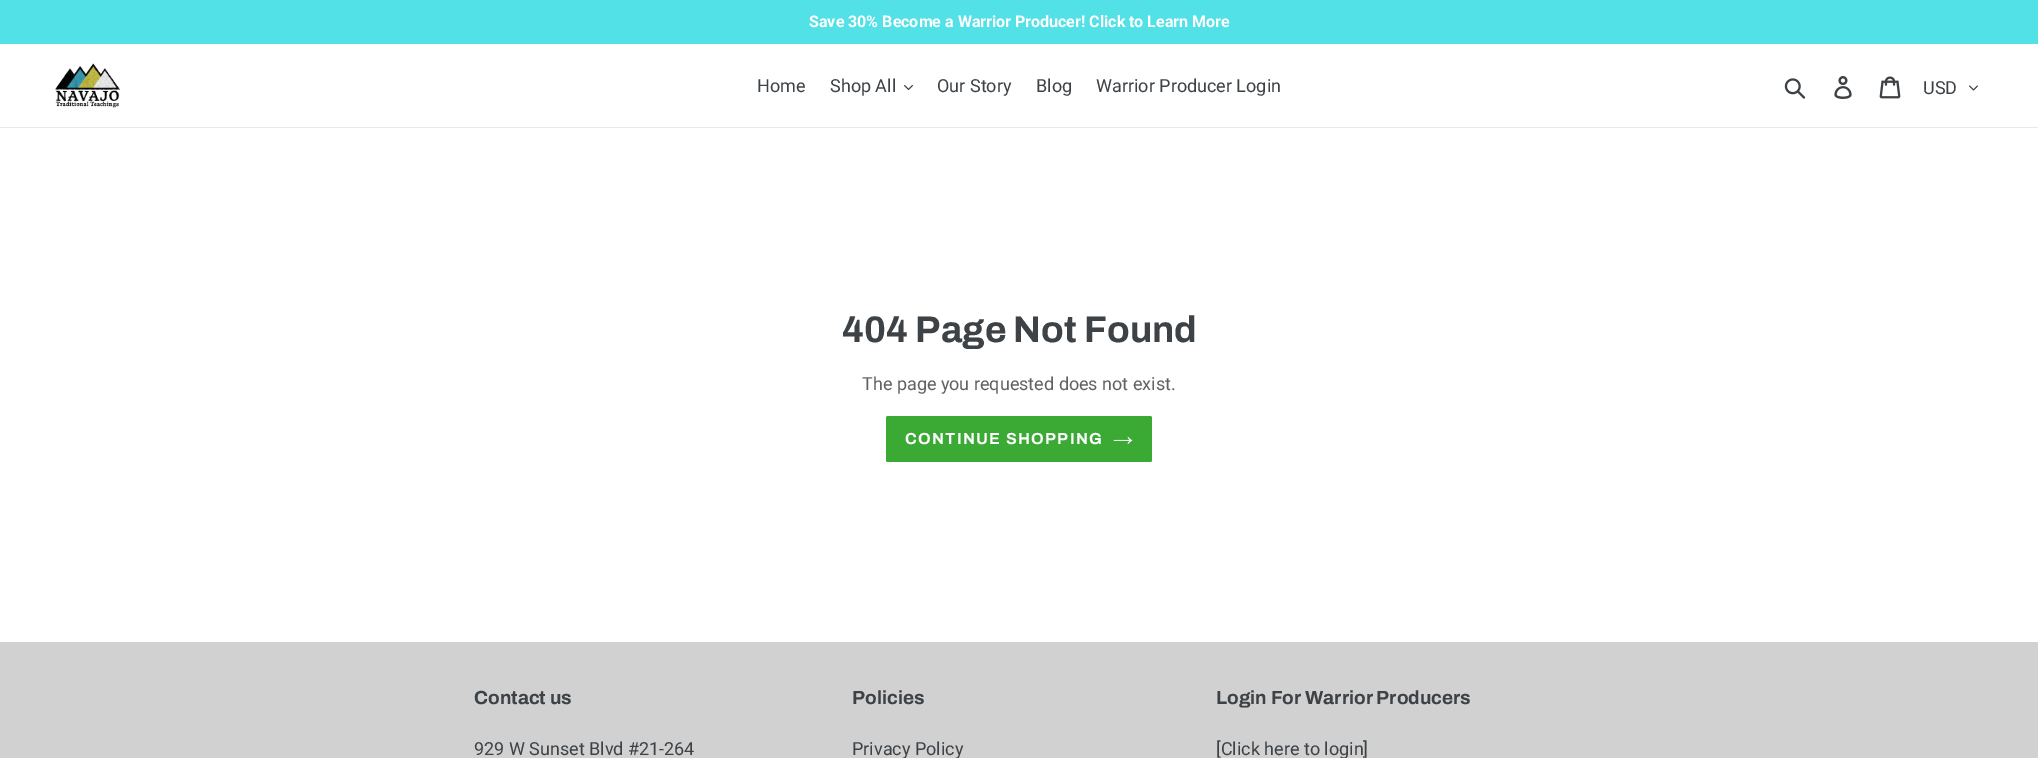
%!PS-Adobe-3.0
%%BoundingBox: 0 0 2038 758
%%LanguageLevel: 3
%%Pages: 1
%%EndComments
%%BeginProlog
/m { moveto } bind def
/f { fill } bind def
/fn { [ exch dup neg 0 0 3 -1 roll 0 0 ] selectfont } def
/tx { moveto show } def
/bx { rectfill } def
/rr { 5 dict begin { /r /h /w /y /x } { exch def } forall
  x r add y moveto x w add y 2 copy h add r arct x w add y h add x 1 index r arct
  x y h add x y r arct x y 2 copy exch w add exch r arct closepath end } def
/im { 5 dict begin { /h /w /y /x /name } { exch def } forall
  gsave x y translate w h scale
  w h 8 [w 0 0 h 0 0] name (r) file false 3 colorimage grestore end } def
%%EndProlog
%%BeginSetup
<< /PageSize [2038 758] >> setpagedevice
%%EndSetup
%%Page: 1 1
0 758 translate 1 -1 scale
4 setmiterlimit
1 setgray
0 0 2038 758 bx
0.318 0.882 0.906 setrgbcolor
0 0 2038 44 bx
/Roboto-Bold 16 fn
1 setgray
(Save 30% Become a Warrior Producer! Click to Learn More) 809 27 tx
0.91 0.914 0.922 setrgbcolor
0 127 2038 1 bx
(image0.raw) 55 63 65 45 im
/Roboto-Regular 18 fn
0.239 0.259 0.275 setrgbcolor
(Home) 757 92 tx
(Shop All) 830 92 tx
(image1.raw) 904 85 9 5 im
(Our Story) 937 92 tx
(Blog) 1036 92 tx
(Warrior Producer Login) 1096 92 tx
(image2.raw) 1784 78 22 21 im
(image3.raw) 1834 76 18 23 im
(image4.raw) 1879 76 22 23 im
(USD) 1923 94 tx
(image5.raw) 1969 85 9 6 im
/Archivo-Bold 37 fn
(404 Page Not Found) 842 342 tx
/Roboto-Regular 18 fn
0.388 0.384 0.384 setrgbcolor
(The page you requested does not exist.) 862 390 tx
0.231 0.667 0.208 setrgbcolor
886 416 266 46 2 rr f
/Archivo-Bold 16 fn
1 setgray
905 444 m 1.25 0 (CONTINUE SHOPPING) ashow
(image6.raw) 1113 436 20 8 im
0.82 setgray
0 642 2038 116 bx
/Archivo-Bold 19 fn
0.239 0.259 0.275 setrgbcolor
(Contact us) 474 704 tx
/Roboto-Regular 18 fn
(929 W Sunset Blvd #21-264) 474 755 tx
/Archivo-Bold 19 fn
(Policies) 852 704 tx
/Roboto-Regular 18 fn
(Privacy Policy) 852 755 tx
/Archivo-Bold 19 fn
(Login For Warrior Producers) 1216 704 tx
/Roboto-Regular 18 fn
([Click here to login]) 1216 755 tx
showpage
%%EOF
